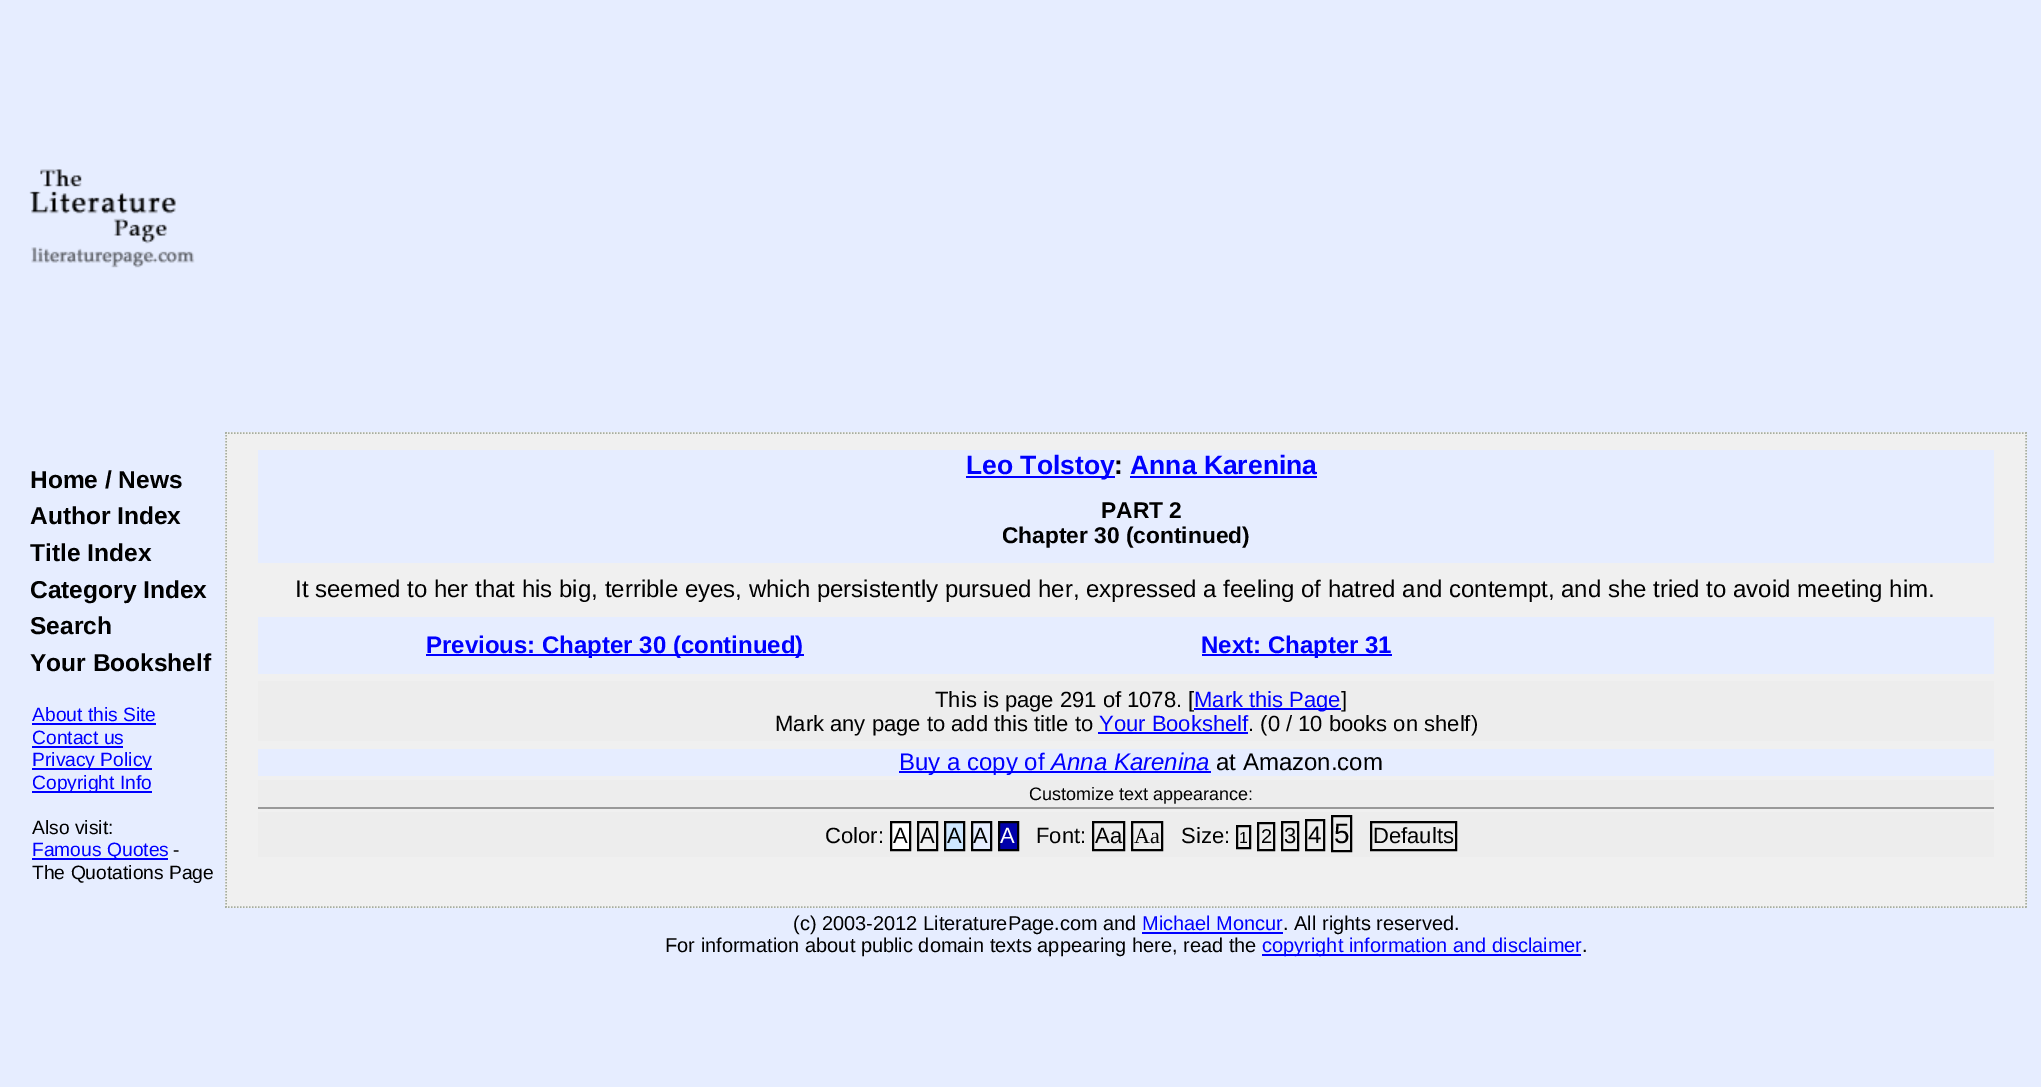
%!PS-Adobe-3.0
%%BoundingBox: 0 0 2041 1087
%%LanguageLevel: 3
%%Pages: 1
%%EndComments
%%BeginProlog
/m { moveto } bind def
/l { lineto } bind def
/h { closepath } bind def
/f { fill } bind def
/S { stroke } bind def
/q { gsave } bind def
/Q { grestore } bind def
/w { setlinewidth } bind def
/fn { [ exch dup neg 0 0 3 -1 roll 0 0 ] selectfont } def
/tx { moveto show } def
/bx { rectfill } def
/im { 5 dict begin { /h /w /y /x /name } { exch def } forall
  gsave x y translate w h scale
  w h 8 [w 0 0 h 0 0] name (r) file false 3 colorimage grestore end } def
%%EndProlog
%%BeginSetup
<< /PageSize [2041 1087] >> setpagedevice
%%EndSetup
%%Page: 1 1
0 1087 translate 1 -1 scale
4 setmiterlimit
0.902 0.929 1 setrgbcolor
0 0 2041 1087 bx
(image0.raw) 29 169 166 99 im
/LiberationSans-Bold 24.5 fn
0 setgray
(Home / News) 30 488 tx
(Author Index) 30 524 tx
(Title Index) 30 561 tx
(Category Index) 30 598 tx
(Search) 30 634 tx
(Your Bookshelf) 30 671 tx
/LiberationSans-Regular 19.25 fn
0 0 1 setrgbcolor
(About this Site) 32 721 tx
32 723 124 2 bx
(Contact us) 32 744 tx
32 746 91 2 bx
32 768 120 2 bx
(Privacy Policy) 32 766 tx
32 791 120 2 bx
(Copyright Info) 32 789 tx
0 setgray
(Also visit:) 32 834 tx
0 0 1 setrgbcolor
32 858 136 2 bx
(Famous Quotes) 32 856 tx
0 setgray
(-) 173 856 tx
(The Quotations Page) 32 879 tx
0.941 setgray
225 432 1802 476 bx
0.651 0.678 0.624 setrgbcolor
1.5 w
[1.5 1.5] 0 setdash
225 433 m 2026.5 433 l S
2026 432 m 2026 907.5 l S
225 907 m 2026.5 907 l S
226 432 m 226 907.5 l S
0.902 0.929 1 setrgbcolor
258 450 1736 113 bx
0 0 1 setrgbcolor
966 476 149 2 bx
/LiberationSans-Bold 26.5 fn
(Leo Tolstoy) 966 474 tx
0 setgray
(:) 1114 474 tx
0 0 1 setrgbcolor
(Anna Karenina) 1130 474 tx
1130 476 187 2 bx
/LiberationSans-Bold 22.75 fn
0 setgray
(PART 2) 1101 518 tx
(Chapter 30 \(continued\)) 1002 543 tx
/LiberationSans-Regular 24 fn
(It seemed to her that his big, terrible eyes, which persistently pursued her, expressed a feeling of hatred and contempt, and she tried to avoid meeting him.) 295 597 tx
0.902 0.929 1 setrgbcolor
258 617 1736 57 bx
0 0 1 setrgbcolor
426 654 378 2 bx
/LiberationSans-Bold 24 fn
(Previous: Chapter 30 \(continued\)) 426 653 tx
1202 654 190 2 bx
(Next: Chapter 31) 1201 653 tx
0.929 setgray
258 681 1736 60 bx
/LiberationSans-Regular 22 fn
0 setgray
(This is page 291 of 1078. [) 935 707 tx
0 0 1 setrgbcolor
1194 708 147 2 bx
(Mark this Page) 1194 707 tx
0 setgray
(]) 1341 707 tx
(Mark any page to add this title to) 775 731 tx
0 0 1 setrgbcolor
(Your Bookshelf) 1099 731 tx
1098 732 150 2 bx
0 setgray
(. \(0 / 10 books on shelf\)) 1248 731 tx
0.902 0.929 1 setrgbcolor
258 749 1736 27 bx
0 0 1 setrgbcolor
899 771 312 2 bx
/LiberationSans-Regular 24 fn
(Buy a copy of) 899 770 tx
/LiberationSans-Italic 24 fn
(Anna Karenina) 1051 770 tx
/LiberationSans-Regular 24 fn
0 setgray
(at Amazon.com) 1216 770 tx
0.929 setgray
258 780 1736 27 bx
0.6 setgray
258 807 1736 2 bx
/LiberationSans-Regular 18 fn
0 setgray
(Customize text appearance:) 1029 800 tx
0.929 setgray
258 812 1736 45 bx
/LiberationSans-Regular 22 fn
0 setgray
(Color:) 825 843 tx
1 setgray
891 822 m 910 822 l 910 850 l 891 850 l h q f Q
0 setgray
2 w
[] 0 setdash
S
(A) 893 843 tx
0.941 setgray
918 822 m 937 822 l 937 850 l 918 850 l h q f Q
0 setgray
S
(A) 920 843 tx
0.808 0.906 1 setrgbcolor
945 822 m 964 822 l 964 850 l 945 850 l h q f Q
0 setgray
S
(A) 947 843 tx
0.902 0.929 1 setrgbcolor
972 822 m 991 822 l 991 850 l 972 850 l h q f Q
0 setgray
S
(A) 973 843 tx
0 0 0.667 setrgbcolor
999 822 m 1018 822 l 1018 850 l 999 850 l h q f Q
0 setgray
S
1 setgray
(A) 1000 843 tx
0 setgray
(Font:) 1036 843 tx
1093 822 31 28 rectstroke
(Aa) 1095 843 tx
1132 822 30 28 rectstroke
/LiberationSerif-Regular 22 fn
(Aa) 1134 843 tx
/LiberationSans-Regular 22 fn
(Size:) 1181 843 tx
1237 826 13 22 rectstroke
/LiberationSans-Regular 16 fn
(1) 1239 843 tx
1258 823 16 27 rectstroke
/LiberationSans-Regular 20 fn
(2) 1261 843 tx
1282 822 16 28 rectstroke
/LiberationSans-Regular 22 fn
(3) 1284 843 tx
1306 820 18 30 rectstroke
/LiberationSans-Regular 24 fn
(4) 1308 843 tx
1332 816 19 35 rectstroke
/LiberationSans-Regular 28 fn
(5) 1334 843 tx
1371 822 85 28 rectstroke
/LiberationSans-Regular 22 fn
(Defaults) 1373 843 tx
/LiberationSans-Regular 20 fn
(\(c\) 2003-2012 LiteraturePage.com and) 793 930 tx
0 0 1 setrgbcolor
(Michael Moncur) 1142 930 tx
0 setgray
(. All rights reserved.) 1283 930 tx
0 0 1 setrgbcolor
1142 932 141 2 bx
0 setgray
(For information about public domain texts appearing here, read the) 665 952 tx
0 0 1 setrgbcolor
1262 954 319 2 bx
(copyright information and disclaimer) 1262 952 tx
0 setgray
(.) 1582 952 tx
showpage
%%EOF
